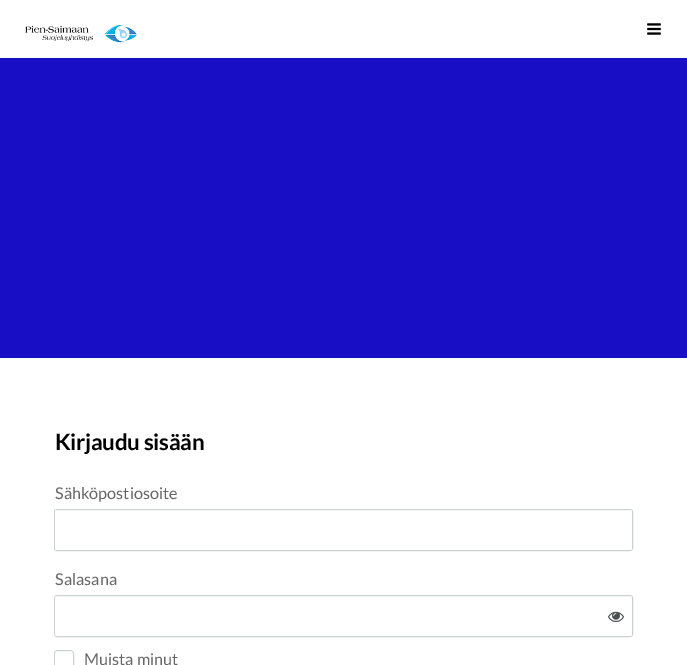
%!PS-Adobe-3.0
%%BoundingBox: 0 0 687 665
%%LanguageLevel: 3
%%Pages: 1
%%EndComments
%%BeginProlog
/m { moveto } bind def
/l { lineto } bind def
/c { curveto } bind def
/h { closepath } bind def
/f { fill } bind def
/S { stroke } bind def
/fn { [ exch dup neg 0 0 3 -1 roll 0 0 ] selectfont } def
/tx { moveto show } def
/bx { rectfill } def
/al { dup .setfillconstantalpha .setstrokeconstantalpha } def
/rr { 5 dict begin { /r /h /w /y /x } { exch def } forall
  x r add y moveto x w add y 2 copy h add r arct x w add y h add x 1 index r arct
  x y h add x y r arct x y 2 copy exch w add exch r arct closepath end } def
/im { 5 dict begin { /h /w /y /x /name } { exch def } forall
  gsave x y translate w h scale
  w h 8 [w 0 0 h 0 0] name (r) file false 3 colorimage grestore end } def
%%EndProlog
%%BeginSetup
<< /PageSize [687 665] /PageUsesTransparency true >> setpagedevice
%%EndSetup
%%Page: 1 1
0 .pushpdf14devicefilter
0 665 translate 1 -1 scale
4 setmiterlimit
1 setgray
0 0 687 665 bx
(image0.raw) 25 25 112 18 im
(image1.raw) 647 23 14 12 im
0.09 0.055 0.773 setrgbcolor
0 58 687 300 bx
/Lato-Bold 22.5 fn
0.008 setgray
55 450 m -0.3 0 (Kirjaudu sisään) ashow
/Lato-Regular 16.25 fn
0.4 setgray
(Sähköpostiosoite) 55 499 tx
0.796 0.816 0.816 setrgbcolor
54.5 509.5 578 41 2.5 rr S
1 setgray
55 510 577 40 2 rr f
0.961 0.961 0.965 setrgbcolor
57 511 m 630 511 l 631 511 632 512 632 513 c 632 512 632 510 630 510 c 57 510 l 55 510 55 512 55 513 c 55 512 56 511 57 511 c h f
0.4 setgray
(Salasana) 55 585 tx
0.796 0.816 0.816 setrgbcolor
54.5 595.5 578 41 2.5 rr S
1 setgray
55 596 577 40 2 rr f
0.961 0.961 0.965 setrgbcolor
57 597 m 630 597 l 631 597 632 598 632 599 c 632 598 632 596 630 596 c 57 596 l 55 596 55 598 55 599 c 55 598 56 597 57 597 c h f
(image2.raw) 608 611 16 11 im
0.796 0.816 0.816 setrgbcolor
54.5 650.5 19 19 3.5 rr S
1 setgray
55 651 18 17 3 rr f
0.05 al
0.247 0.247 0.267 setrgbcolor
58 652 m 68 652 l 72 652 73 653 73 654.5 c 73 649.5 67.5 651 64 651 c 61 651 55 649.5 55 654 c 55.5 653 56.5 652 58 652 c h 55 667 m 55 663 l h eofill
1 al
0.4 setgray
(Muista minut) 84 665 tx
.poppdf14devicefilter showpage
%%EOF
